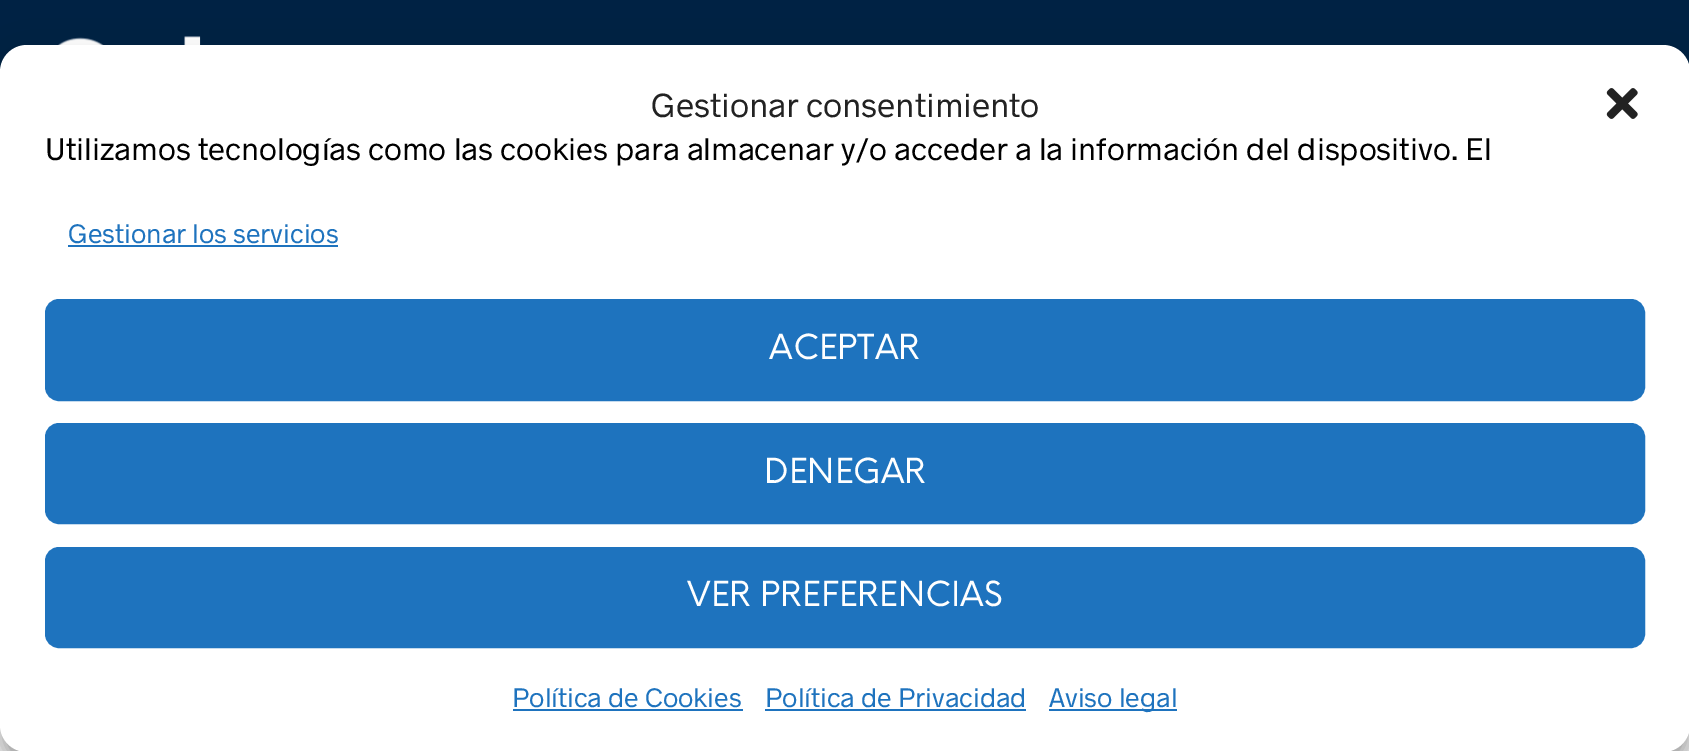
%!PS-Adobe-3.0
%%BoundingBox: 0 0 1689 751
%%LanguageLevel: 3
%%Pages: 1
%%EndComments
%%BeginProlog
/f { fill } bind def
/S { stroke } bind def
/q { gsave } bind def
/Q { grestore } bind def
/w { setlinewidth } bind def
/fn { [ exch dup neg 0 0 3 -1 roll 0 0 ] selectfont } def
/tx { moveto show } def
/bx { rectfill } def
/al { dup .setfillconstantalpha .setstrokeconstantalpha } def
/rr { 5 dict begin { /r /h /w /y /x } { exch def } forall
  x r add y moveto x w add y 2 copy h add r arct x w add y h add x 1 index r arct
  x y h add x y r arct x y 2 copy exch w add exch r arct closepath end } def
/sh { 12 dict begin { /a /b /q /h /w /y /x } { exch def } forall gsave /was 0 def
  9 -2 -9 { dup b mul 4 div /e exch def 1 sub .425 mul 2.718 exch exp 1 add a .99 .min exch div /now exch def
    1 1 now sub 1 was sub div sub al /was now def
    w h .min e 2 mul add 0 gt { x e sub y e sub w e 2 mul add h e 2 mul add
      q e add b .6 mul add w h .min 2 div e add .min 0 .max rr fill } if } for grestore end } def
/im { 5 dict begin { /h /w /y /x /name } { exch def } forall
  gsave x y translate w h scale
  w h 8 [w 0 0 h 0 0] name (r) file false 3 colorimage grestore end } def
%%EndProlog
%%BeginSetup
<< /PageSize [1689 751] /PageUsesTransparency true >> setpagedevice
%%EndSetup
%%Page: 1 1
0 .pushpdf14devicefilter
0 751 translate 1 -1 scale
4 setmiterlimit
1 setgray
0 0 1689 751 bx
0 0.133 0.267 setrgbcolor
0 0 1689 72 bx
(image0.raw) 58 36 143 9 im
0 setgray
0 59 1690 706 27 7 0.23 sh
0 68 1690 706 27 22.5 0.19 sh
1 setgray
0 45 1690 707 27 rr f
/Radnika-Regular 33.75 fn
0.133 setgray
(Gestionar consentimiento) 651 117 tx
(image1.raw) 1606 88 32 31 im
/Radnika-Regular 31.5 fn
0 setgray
(Utilizamos tecnologías como las cookies para almacenar y/o acceder a la información del dispositivo. El) 45 160 tx
/Radnika-Regular 27 fn
0.118 0.451 0.745 setrgbcolor
(Gestionar los servicios) 68 243 tx
68 245 270 2 bx
46 300 1598 100 13 rr q f Q
2 w
S
/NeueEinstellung-Regular 33.75 fn
1 setgray
(ACEPTAR) 769 359 tx
0.118 0.451 0.745 setrgbcolor
46 424 1598 99 13 rr q f Q
S
1 setgray
(DENEGAR) 764 483 tx
0.118 0.451 0.745 setrgbcolor
46 548 1598 99 13 rr q f Q
S
1 setgray
(VER PREFERENCIAS) 687 606 tx
/Radnika-Regular 27 fn
0.118 0.451 0.745 setrgbcolor
(Política de Cookies) 512 707 tx
513 709 230 2 bx
(Política de Privacidad) 765 707 tx
765 709 261 2 bx
1049 709 128 2 bx
(Aviso legal) 1049 707 tx
.poppdf14devicefilter showpage
%%EOF
